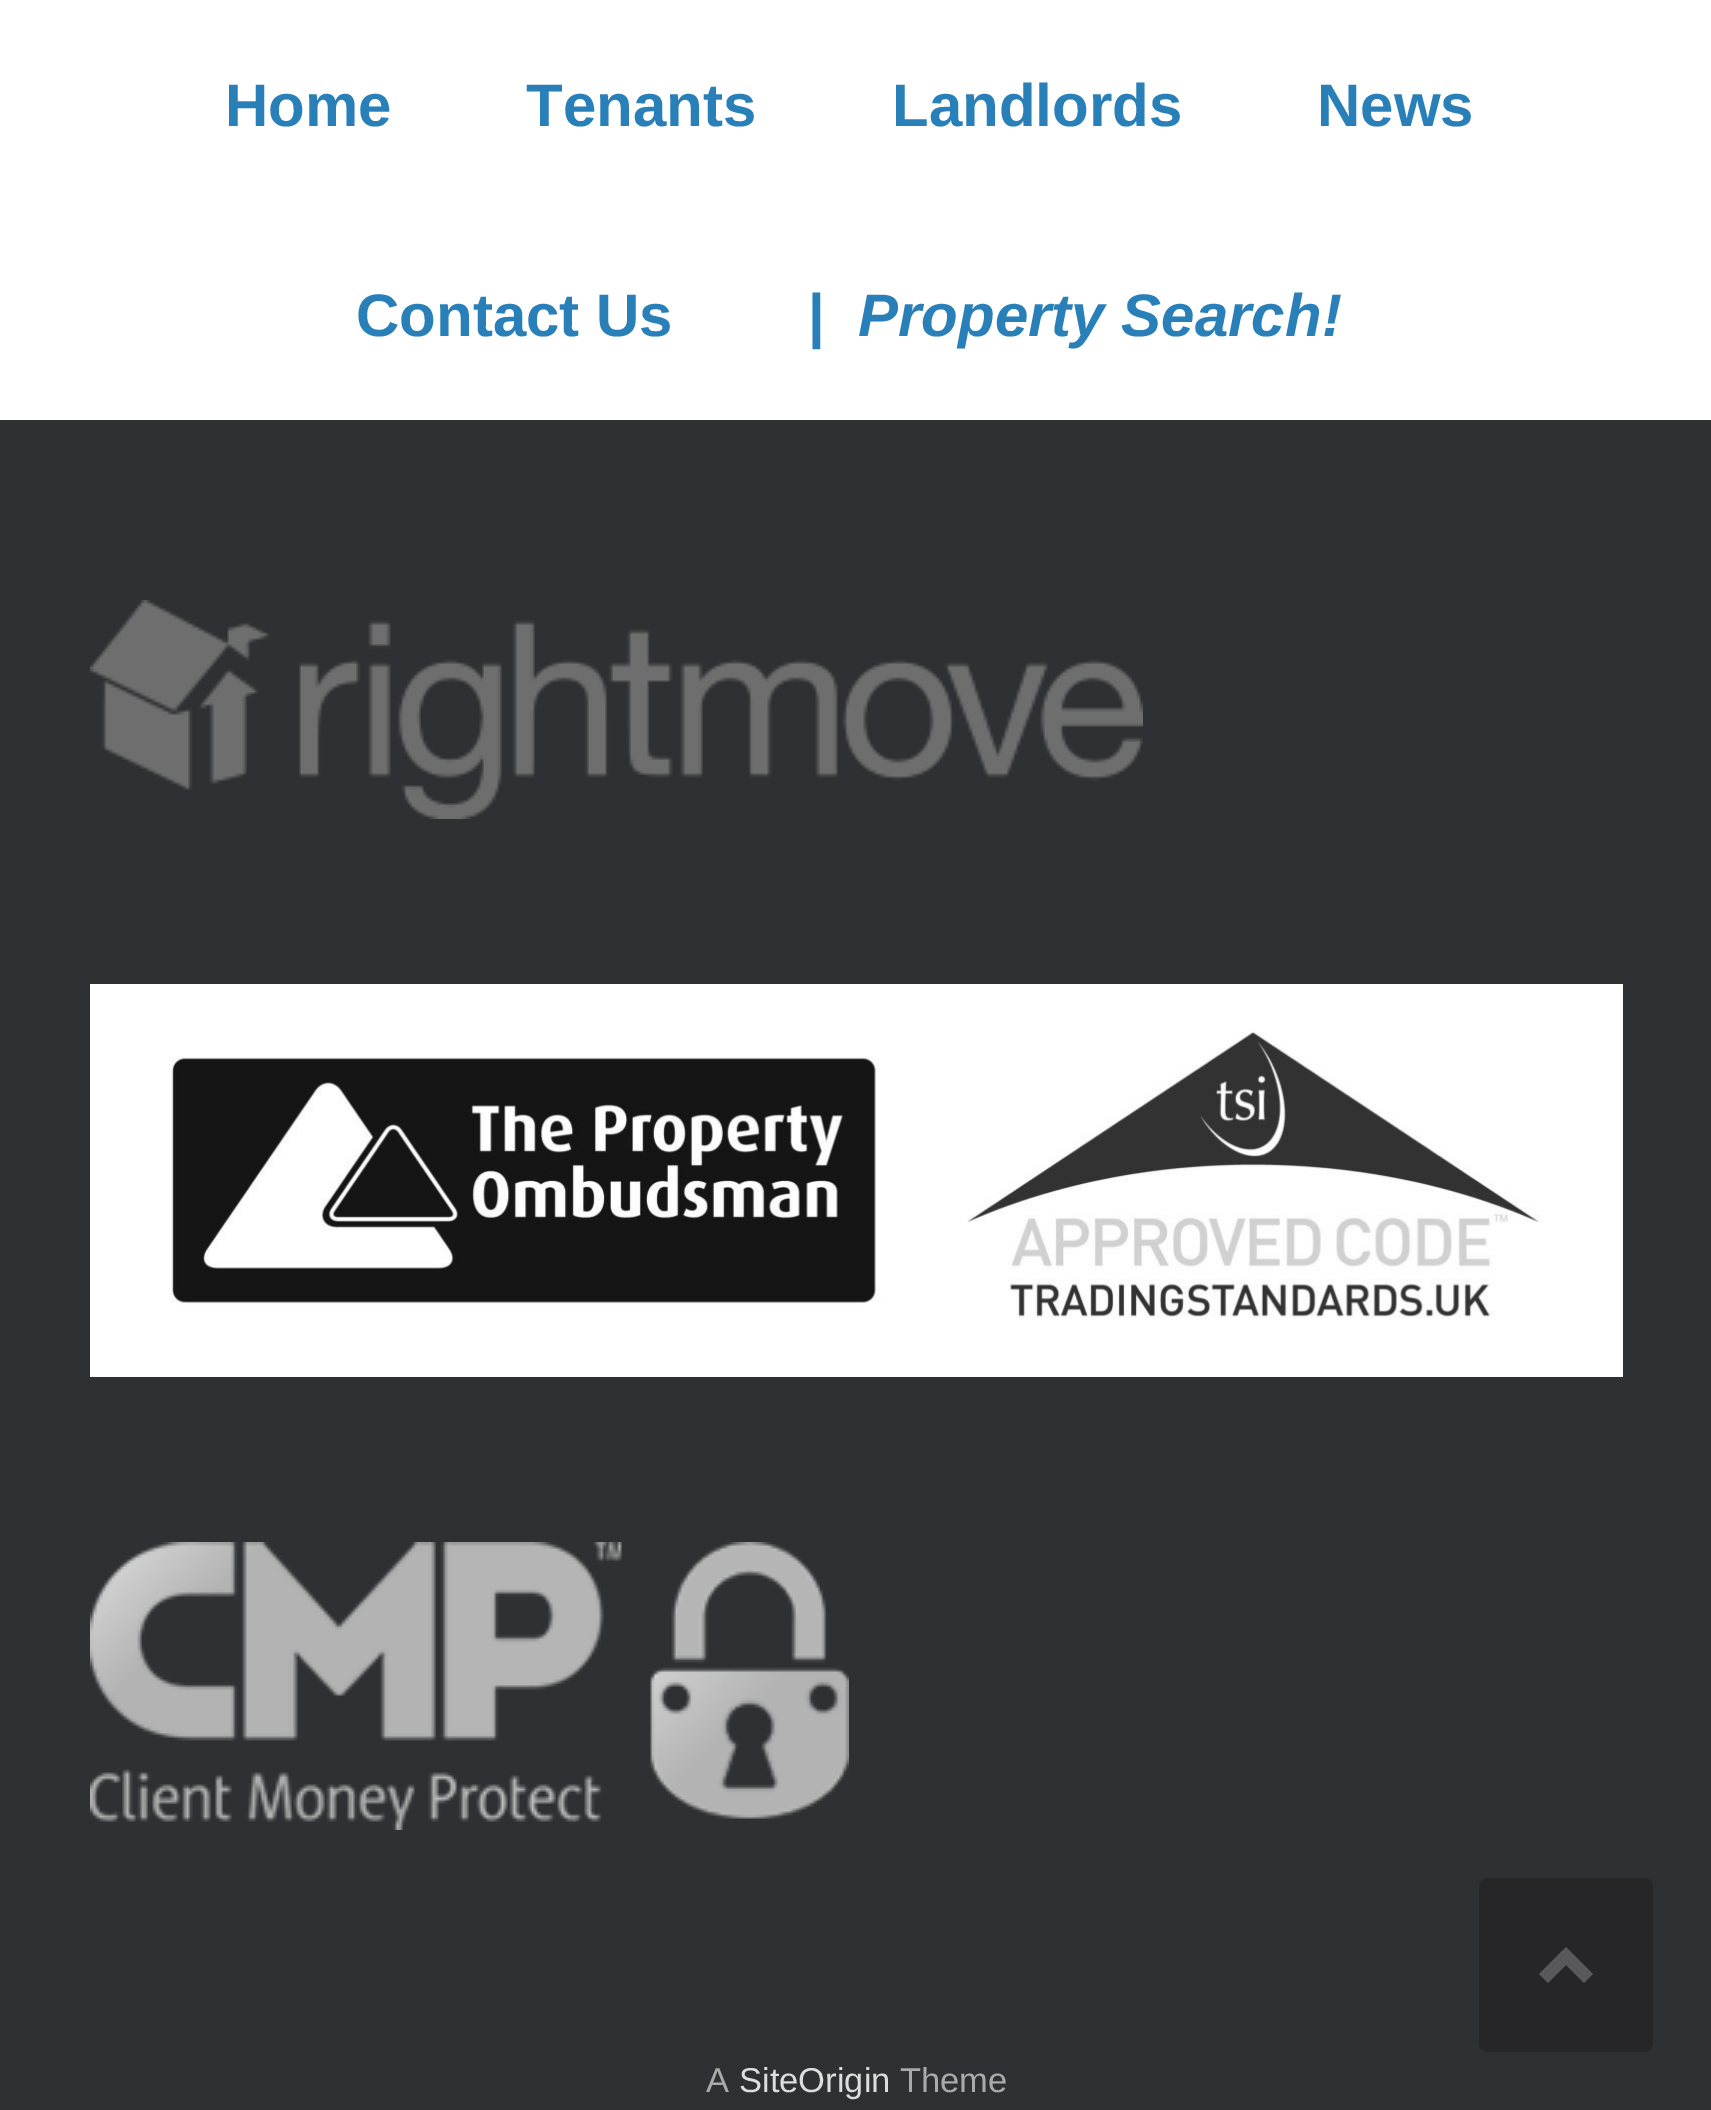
%!PS-Adobe-3.0
%%BoundingBox: 0 0 1711 2110
%%LanguageLevel: 3
%%Pages: 1
%%EndComments
%%BeginProlog
/m { moveto } bind def
/l { lineto } bind def
/h { closepath } bind def
/f { fill } bind def
/fn { [ exch dup neg 0 0 3 -1 roll 0 0 ] selectfont } def
/tx { moveto show } def
/bx { rectfill } def
/rr { 5 dict begin { /r /h /w /y /x } { exch def } forall
  x r add y moveto x w add y 2 copy h add r arct x w add y h add x 1 index r arct
  x y h add x y r arct x y 2 copy exch w add exch r arct closepath end } def
/im { 5 dict begin { /h /w /y /x /name } { exch def } forall
  gsave x y translate w h scale
  w h 8 [w 0 0 h 0 0] name (r) file false 3 colorimage grestore end } def
%%EndProlog
%%BeginSetup
<< /PageSize [1711 2110] >> setpagedevice
%%EndSetup
%%Page: 1 1
0 2110 translate 1 -1 scale
4 setmiterlimit
0.184 0.188 0.2 setrgbcolor
0 0 1711 2110 bx
1 setgray
0 0 1711 420 bx
/LiberationSans-Bold 60 fn
0.161 0.502 0.725 setrgbcolor
(Home) 225 126 tx
(Tenants) 526 126 tx
(Landlords) 892 126 tx
(News) 1317 126 tx
(Contact Us) 356 336 tx
(|) 808 336 tx
/LiberationSans-BoldItalic 60 fn
(Property Search!) 858 336 tx
(image0.raw) 90 600 1053 219 im
(image1.raw) 90 984 1533 393 im
(image2.raw) 90 1542 759 288 im
/LiberationSans-Regular 34.5 fn
0.667 setgray
(A) 706 2092 tx
0.867 setgray
(SiteOrigin) 739 2092 tx
0.667 setgray
(Theme) 900 2092 tx
0.149 0.149 0.161 setrgbcolor
1479 1878 174 174 9 rr f
0.349 0.349 0.361 setrgbcolor
1593 1974 m 1566 1947 l 1539 1974 l 1548 1983 l 1566 1965 l 1584 1983 l h f
showpage
%%EOF
